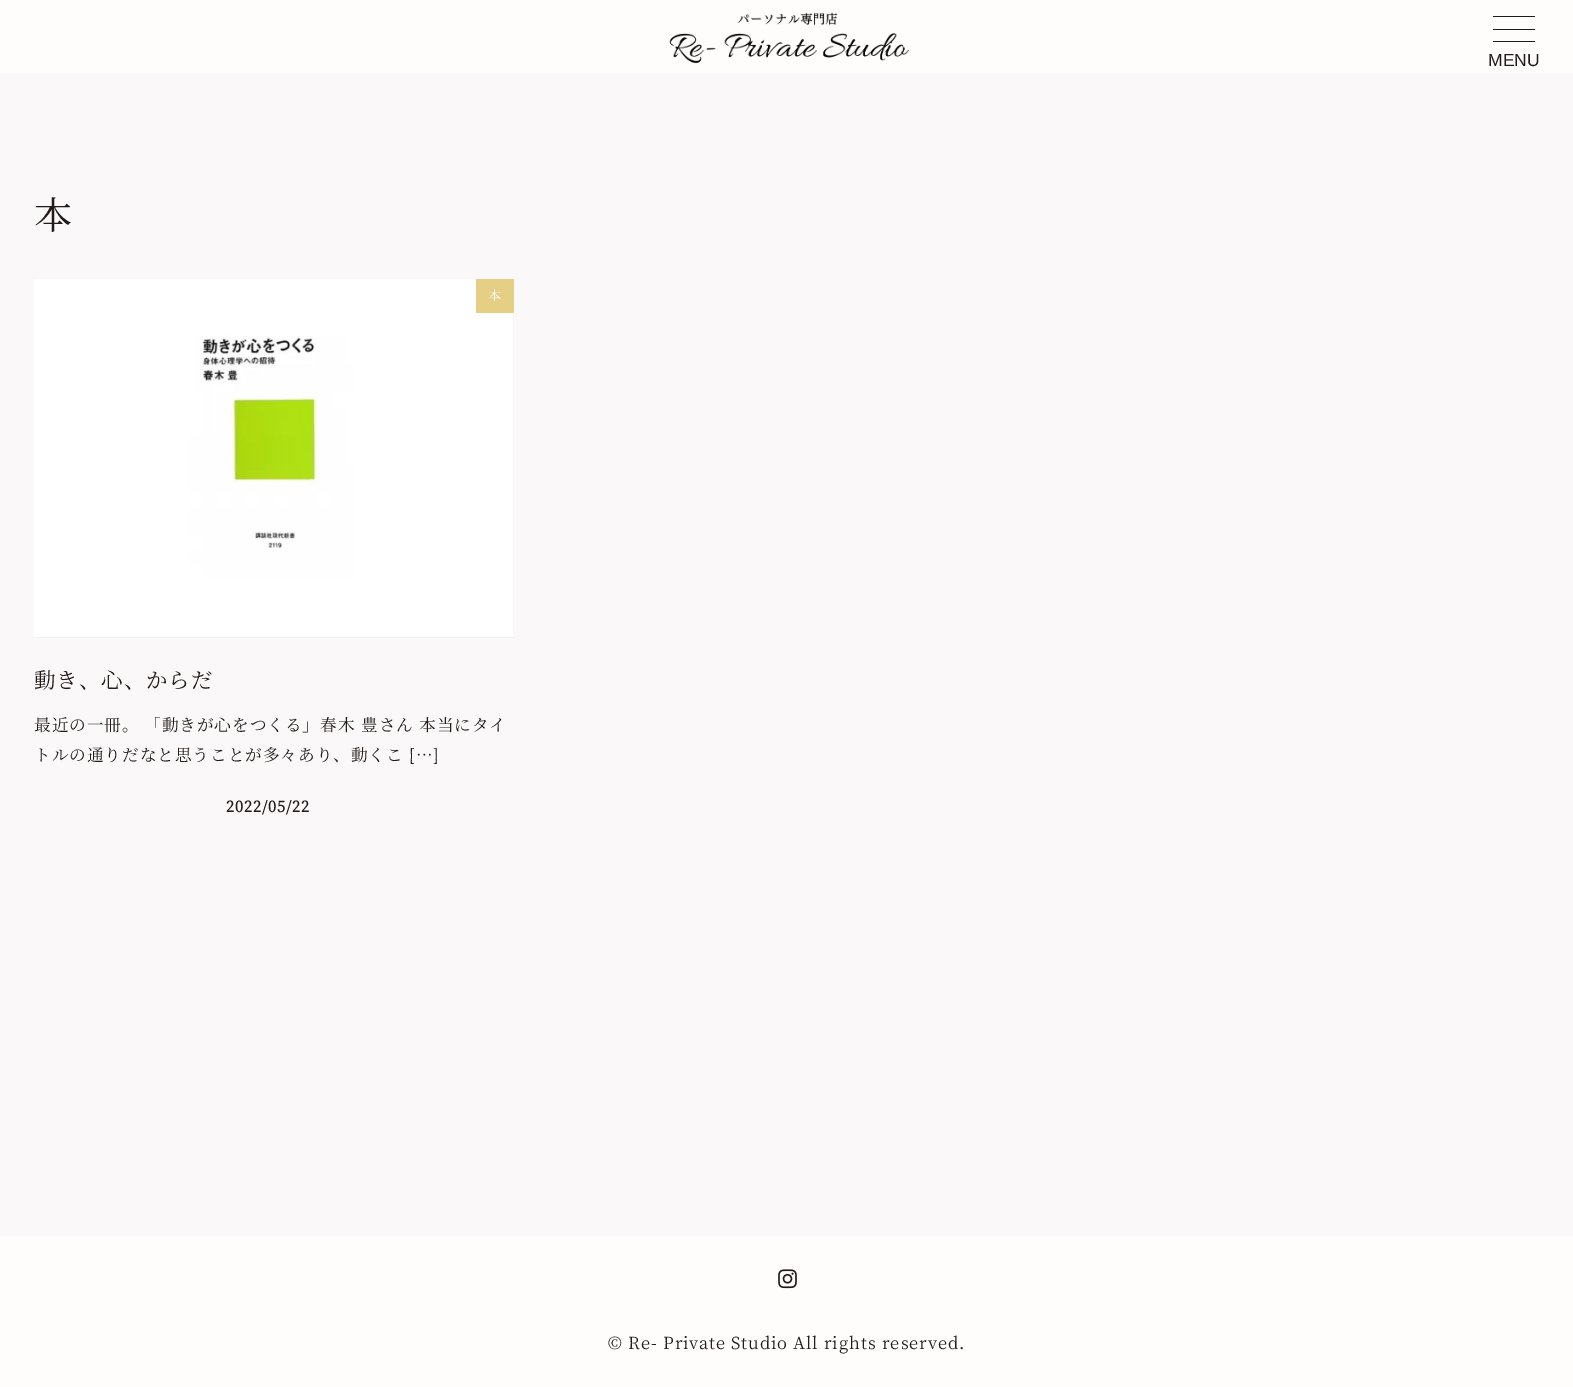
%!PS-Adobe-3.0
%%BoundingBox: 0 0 1573 1387
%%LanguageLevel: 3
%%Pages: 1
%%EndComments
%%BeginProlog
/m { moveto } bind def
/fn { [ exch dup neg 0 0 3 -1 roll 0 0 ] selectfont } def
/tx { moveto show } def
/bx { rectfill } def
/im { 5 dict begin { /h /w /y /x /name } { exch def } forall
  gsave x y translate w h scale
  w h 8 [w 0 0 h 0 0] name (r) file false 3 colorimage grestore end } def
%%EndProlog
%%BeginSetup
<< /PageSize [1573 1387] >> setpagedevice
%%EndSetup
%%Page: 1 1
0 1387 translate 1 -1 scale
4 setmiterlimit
0.98 0.973 0.973 setrgbcolor
0 0 1573 1387 bx
0.996 0.992 0.988 setrgbcolor
0 0 1573 73 bx
(image0.raw) 669 12 241 52 im
0.133 0.106 0.094 setrgbcolor
1493 16 42 1 bx
1493 29 42 1 bx
1493 41 42 1 bx
/LiberationSans-Regular 17.5 fn
(MENU) 1488 66 tx
/NotoSerifJP-Regular 38 fn
34 229 m 0.9 0 (本) ashow
0.933 setgray
34 313 480 325 bx
(image1.raw) 34 279 480 359 im
0.894 0.812 0.522 setrgbcolor
476 279 38 34 bx
/NotoSerifJP-Regular 13 fn
1 setgray
488 300 m 0.9 0 (本) ashow
/NotoSerifJP-Regular 21.5 fn
0.133 0.106 0.094 setrgbcolor
34 688 m 0.9 0 (動き、心、からだ) ashow
/NotoSerifJP-Regular 16.7 fn
34 731 m 0.9 0 (最近の一冊。) ashow
144 731 m 0.9 0 (「動きが心をつくる」春木) ashow
361 731 m 0.9 0 (豊さん) ashow
419 731 m 0.9 0 (本当にタイ) ashow
34 761 m 0.9 0 (トルの通りだなと思うことが多々あり、動くこ) ashow
409 761 m 0.9 0 ([…]) ashow
/NotoSerifJP-Bold 15 fn
226 812 m 0.9 0 (2022/05/22) ashow
0.996 0.992 0.988 setrgbcolor
0 1236 1573 151 bx
(image2.raw) 778 1269 19 20 im
/NotoSerifJP-Regular 16.7 fn
0.133 0.106 0.094 setrgbcolor
608 1349 m 0.9 0 (©) ashow
628 1349 m 0.9 0 (Re-) ashow
663 1349 m 0.9 0 (Private) ashow
731 1349 m 0.9 0 (Studio) ashow
793 1349 m 0.9 0 (All) ashow
824 1349 m 0.9 0 (rights) ashow
882 1349 m 0.9 0 (reserved.) ashow
showpage
%%EOF
